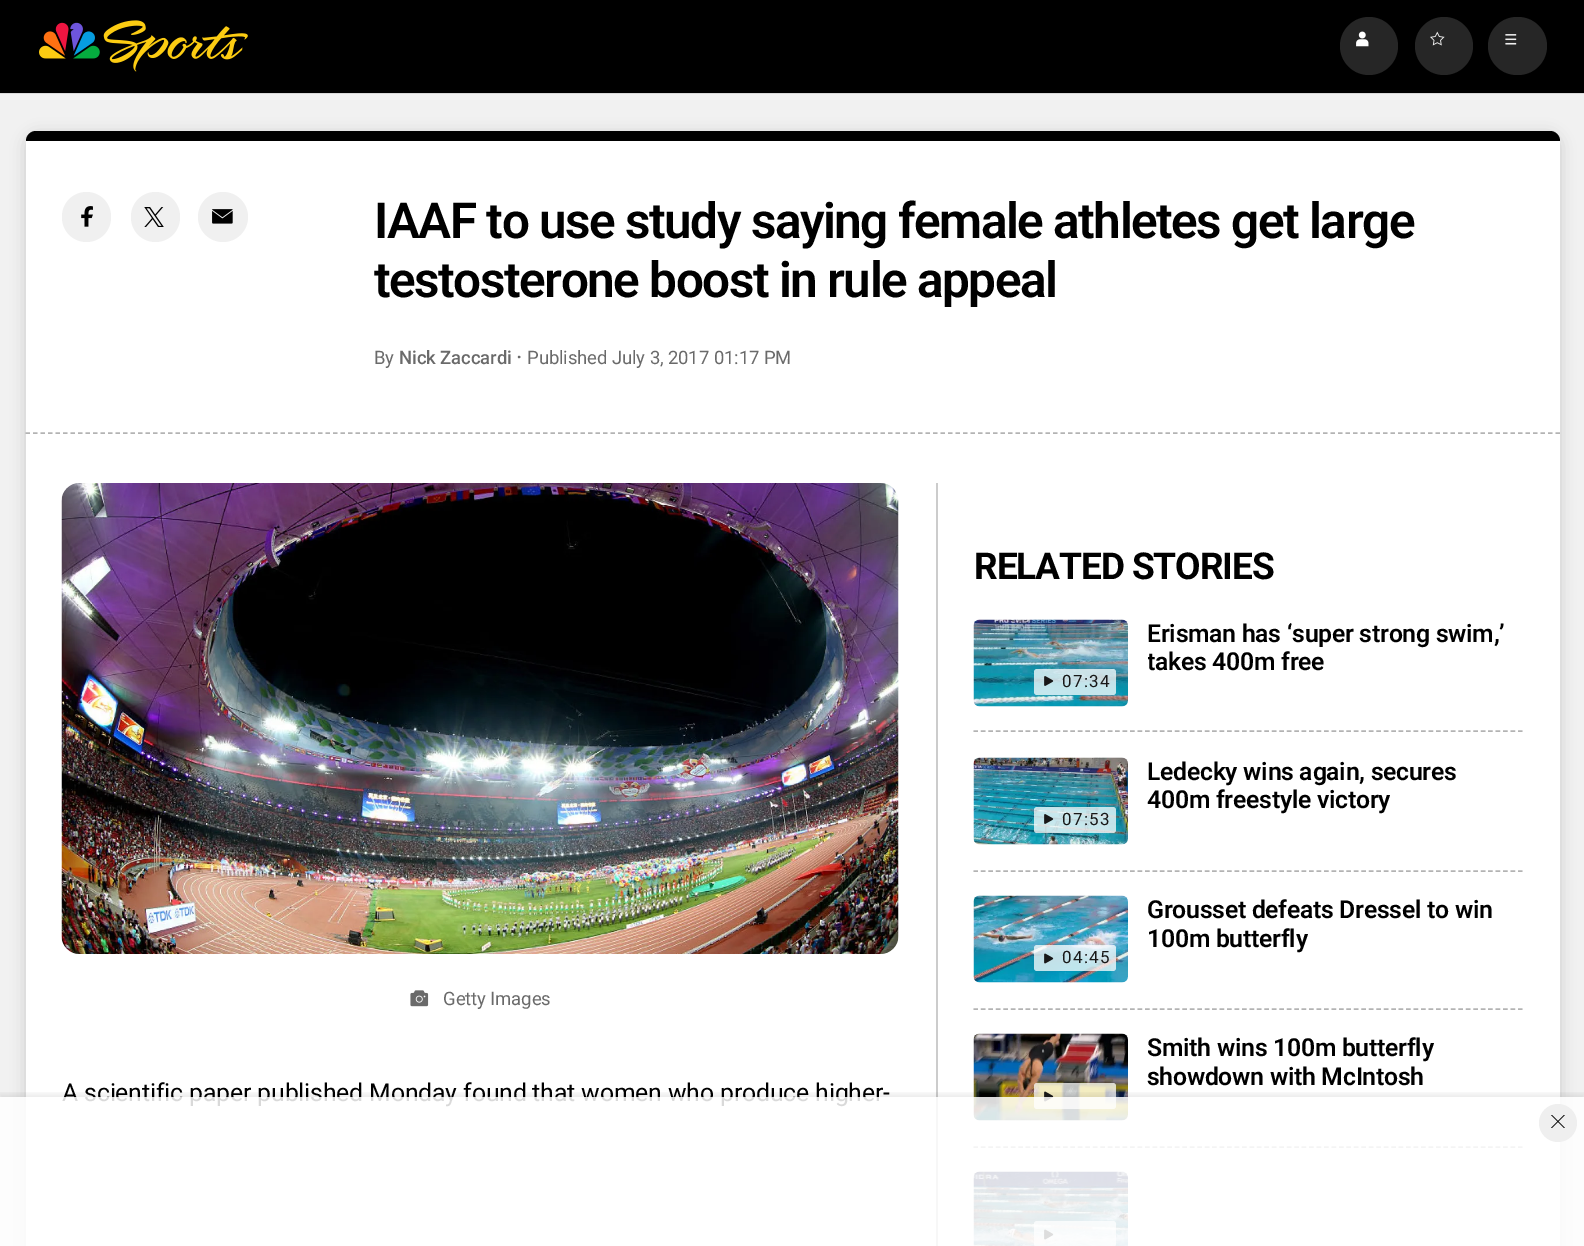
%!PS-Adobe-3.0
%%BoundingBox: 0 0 1584 1246
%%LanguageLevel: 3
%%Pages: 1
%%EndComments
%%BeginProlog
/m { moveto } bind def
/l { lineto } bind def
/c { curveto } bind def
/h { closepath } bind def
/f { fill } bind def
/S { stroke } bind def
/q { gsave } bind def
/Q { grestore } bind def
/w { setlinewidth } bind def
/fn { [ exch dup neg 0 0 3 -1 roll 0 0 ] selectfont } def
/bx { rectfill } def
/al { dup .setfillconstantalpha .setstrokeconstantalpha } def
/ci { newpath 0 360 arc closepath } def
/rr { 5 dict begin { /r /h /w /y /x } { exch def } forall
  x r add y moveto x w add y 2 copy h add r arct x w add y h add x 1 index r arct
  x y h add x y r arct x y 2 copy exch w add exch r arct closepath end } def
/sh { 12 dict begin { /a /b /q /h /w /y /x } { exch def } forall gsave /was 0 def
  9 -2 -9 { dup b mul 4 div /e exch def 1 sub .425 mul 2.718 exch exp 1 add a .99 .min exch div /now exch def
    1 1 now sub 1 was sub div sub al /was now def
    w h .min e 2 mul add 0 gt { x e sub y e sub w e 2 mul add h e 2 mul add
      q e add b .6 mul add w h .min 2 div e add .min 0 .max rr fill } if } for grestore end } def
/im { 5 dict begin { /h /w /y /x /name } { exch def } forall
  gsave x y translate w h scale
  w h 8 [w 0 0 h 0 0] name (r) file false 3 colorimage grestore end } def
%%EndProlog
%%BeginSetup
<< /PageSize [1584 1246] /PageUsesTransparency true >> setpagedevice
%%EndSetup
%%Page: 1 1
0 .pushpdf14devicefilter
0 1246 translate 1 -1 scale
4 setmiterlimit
0.945 setgray
0 0 1584 1246 bx
0.851 setgray
0 93 1584 1 bx
0 setgray
0 0 1584 93 bx
(image0.raw) 39 20 209 52 im
0.149 setgray
1369 46 29 ci f
(image1.raw) 1356 31 13 16 im
1444 46 29 ci f
(image2.raw) 1430 31 15 15 im
1488 17 59 58 29 rr f
(image3.raw) 1505 34 12 11 im
0 setgray
26 134 1534 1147 12 7.5 0.15 sh
1 setgray
26 131 1534 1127 12 rr f
0 setgray
36 131 m 1550 131 l 1555.5 131 1560 135.5 1560 141 c 26 141 l 26 135.5 30.5 131 36 131 c h f
0.702 setgray
1.5 w
[4.5 3] 0 setdash
25.5 433 m 1560 433 l S
0.941 setgray
62 192 49 50 24.5 rr f
(image4.raw) 81 206 12 21 im
131 192 49 50 24.5 rr f
(image5.raw) 144 207 20 20 im
223 217 25 ci f
(image6.raw) 212 209 21 15 im
/Roboto-SemiBold 49.5 fn
0 setgray
374 238 m -1.48 0 (IAAF to use study saying female athletes get large) ashow
374 297 m -1.48 0 (testosterone boost in rule appeal) ashow
/Roboto-Regular 18.5 fn
0.416 setgray
374 364 m -0.1 0 (By) ashow
/Roboto-Medium 18.5 fn
399 364 m -0.1 0 (Nick Zaccardi) ashow
519.1 357 1.2 ci f
/Roboto-Regular 18.5 fn
527 364 m -0.1 0 (Published July 3, 2017 01:17 PM) ashow
(image7.raw) 61 483 838 471 im
(image8.raw) 410 990 19 17 im
443 1005 m -0.1 0 (Getty Images) ashow
/Roboto-Regular 24.75 fn
0 setgray
62 1101 m -0.12 0 (A scientific paper published Monday found that women who produce higher-) ashow
0.8 setgray
936 483 2 763 bx
/Roboto-Bold 37 fn
0 setgray
974 579 m -1.1 0 (RELATED STORIES) ashow
/Roboto-SemiBold 24.75 fn
1147 642 m -0.25 0 (Erisman has ‘super strong swim,’) ashow
q
1148 620 375 57 rectclip
1147 670 m -0.25 0 (takes 400m free) ashow
Q
(image9.raw) 973 619 155 88 im
0.75 al
1 setgray
1034 669 82 26 3 rr f
1 al
(image10.raw) 1044 676 10 10 im
/Roboto-Regular 17 fn
0.094 setgray
1062 687 m 1.25 0 (07:34) ashow
0.702 setgray
[4.5 2.96] 0 setdash
973.5 731 m 1522.5 731 l S
/Roboto-SemiBold 24.75 fn
0 setgray
1147 780 m -0.25 0 (Ledecky wins again, secures) ashow
1147 808 m -0.25 0 (400m freestyle victory) ashow
(image11.raw) 973 757 155 88 im
0.75 al
1 setgray
1034 807 82 26 3 rr f
1 al
(image12.raw) 1044 814 10 10 im
/Roboto-Regular 17 fn
0.094 setgray
1062 825 m 1.25 0 (07:53) ashow
0.702 setgray
973.5 871 m 1522.5 871 l S
/Roboto-SemiBold 24.75 fn
0 setgray
1147 918 m -0.25 0 (Grousset defeats Dressel to win) ashow
1147 947 m -0.25 0 (100m butterfly) ashow
(image13.raw) 973 895 155 88 im
0.75 al
1 setgray
1034 945 82 26 3 rr f
1 al
(image14.raw) 1044 953 10 11 im
/Roboto-Regular 17 fn
0.094 setgray
1062 963 m 1.25 0 (04:45) ashow
0.702 setgray
973.5 1009 m 1522.5 1009 l S
(image15.raw) 973 1033 155 88 im
0.75 al
1 setgray
1034 1083 82 26 3 rr f
1 al
(image16.raw) 1044 1091 10 11 im
/Roboto-SemiBold 24.75 fn
0 setgray
1147 1056 m -0.25 0 (Smith wins 100m butterfly) ashow
1147 1085 m -0.25 0 (showdown with McIntosh) ashow
0.702 setgray
973.5 1147 m 1522.5 1147 l S
(image17.raw) 973 1171 155 75 im
0.75 al
1 setgray
1034 1221 82 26 3 rr f
1 al
(image18.raw) 1044 1229 10 11 im
q
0 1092 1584 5 rectclip
0 setgray
0 1094 1584 150 0 3 0.08 sh
Q
0.85 al
0 1097 1584 149 bx
1 al
0.937 setgray
1558 1123 19 ci f
(image19.raw) 1551 1115 14 13 im
.poppdf14devicefilter showpage
%%EOF
